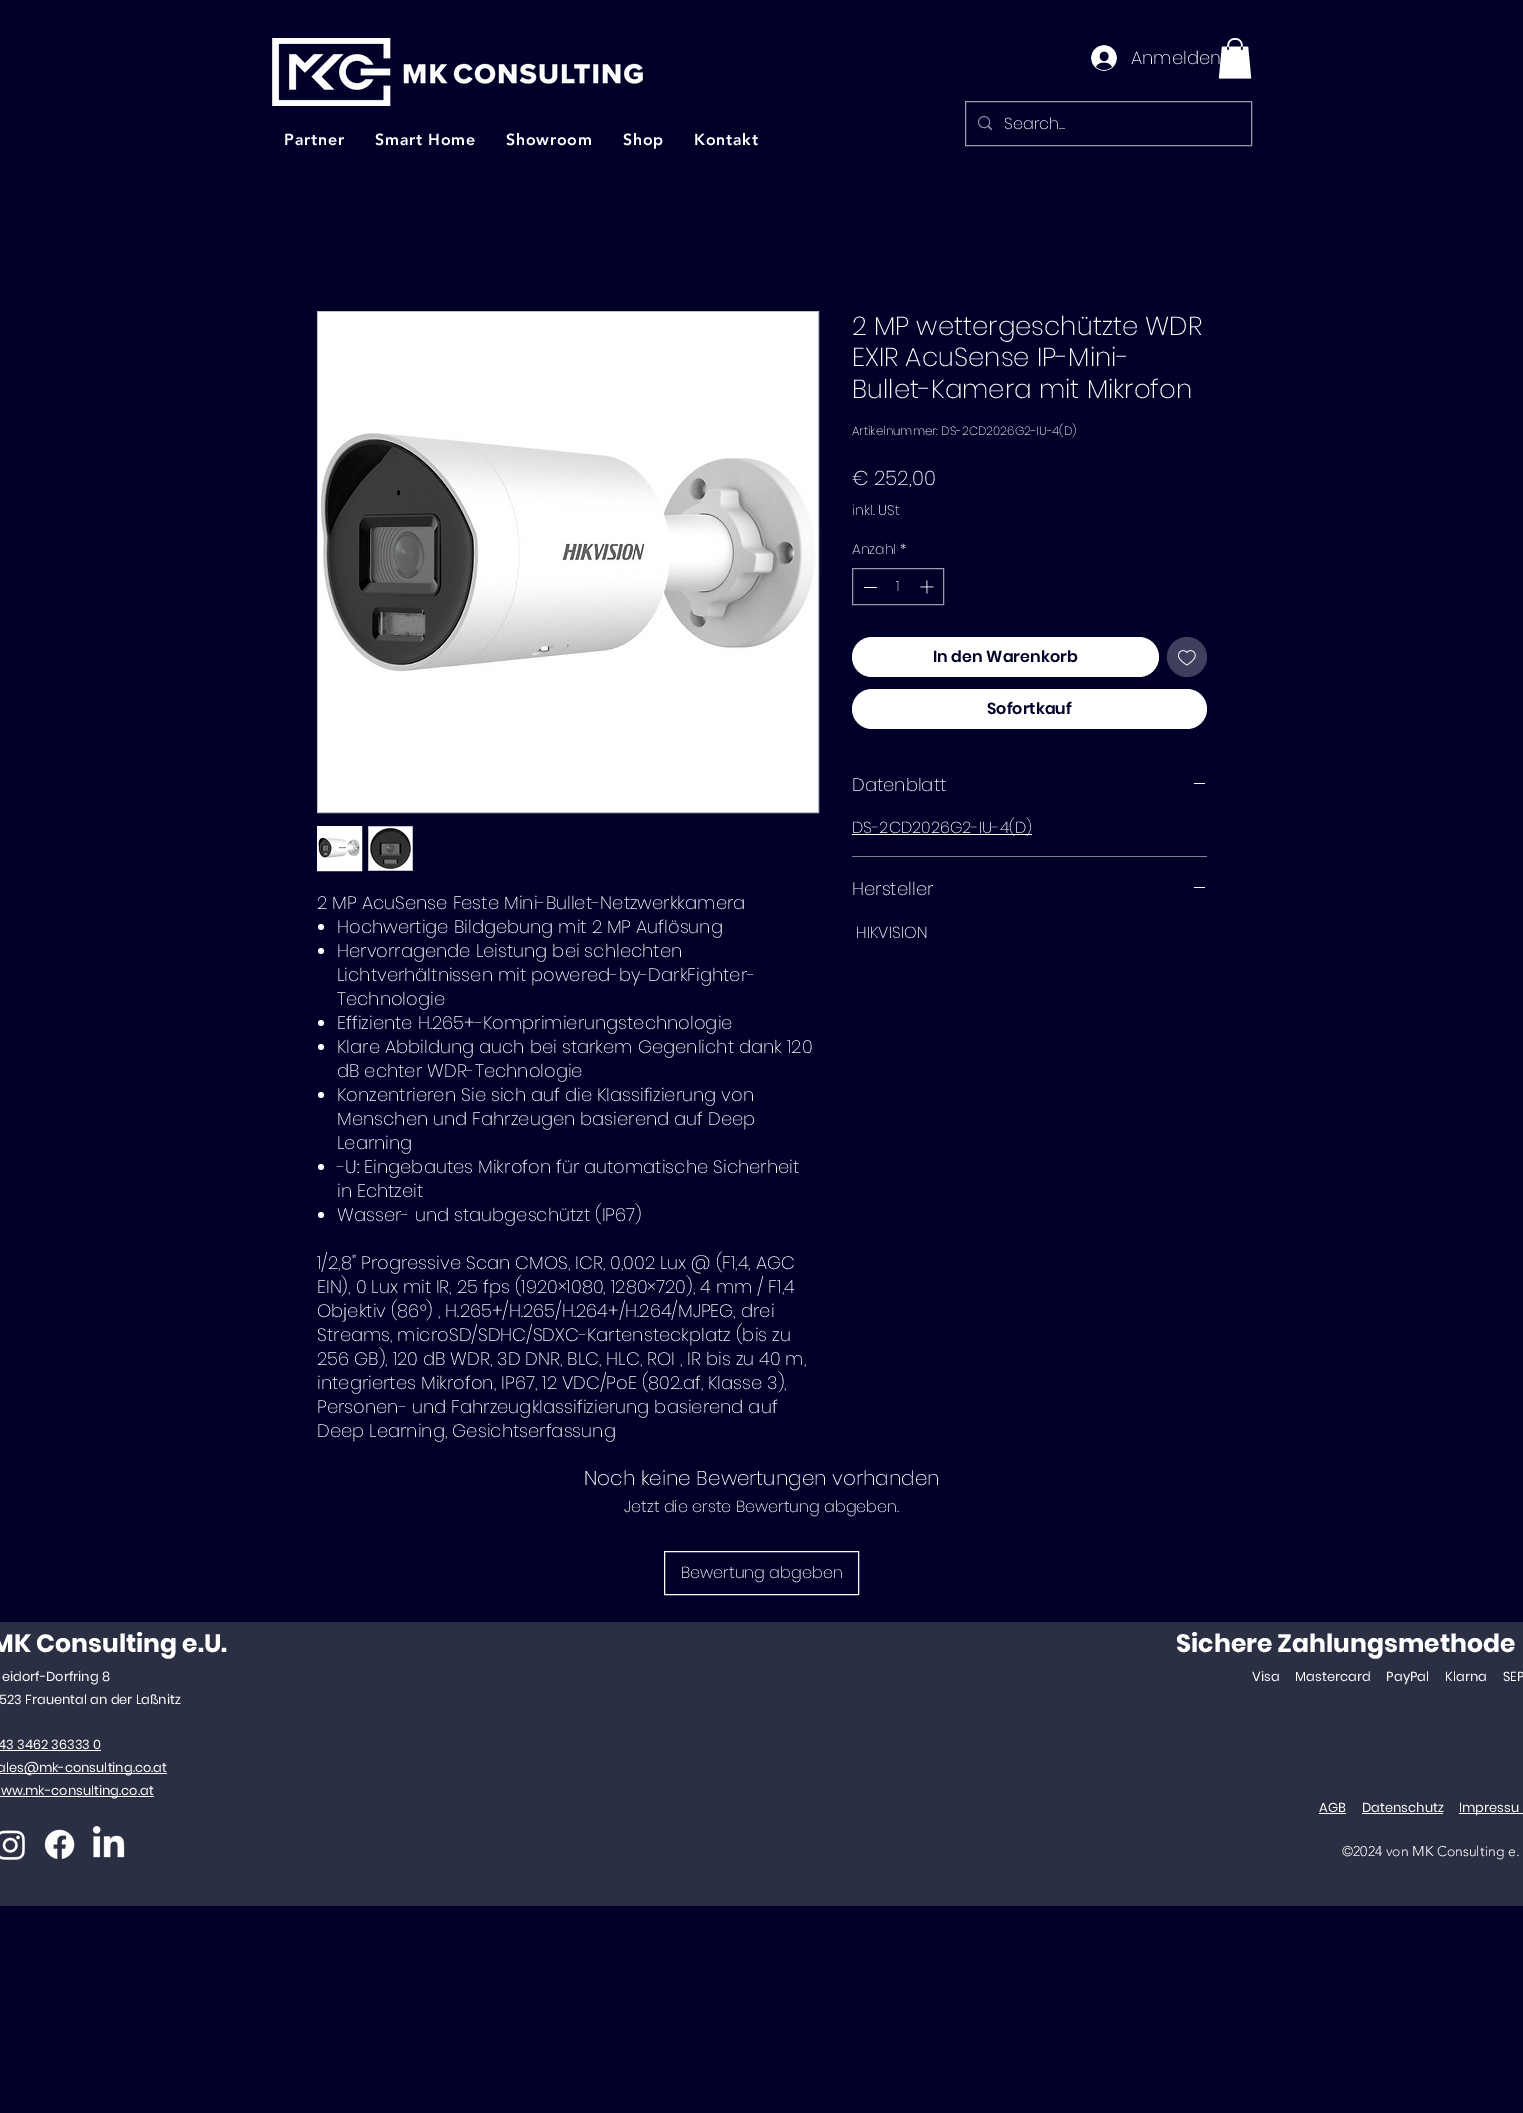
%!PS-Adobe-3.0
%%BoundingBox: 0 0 1523 2113
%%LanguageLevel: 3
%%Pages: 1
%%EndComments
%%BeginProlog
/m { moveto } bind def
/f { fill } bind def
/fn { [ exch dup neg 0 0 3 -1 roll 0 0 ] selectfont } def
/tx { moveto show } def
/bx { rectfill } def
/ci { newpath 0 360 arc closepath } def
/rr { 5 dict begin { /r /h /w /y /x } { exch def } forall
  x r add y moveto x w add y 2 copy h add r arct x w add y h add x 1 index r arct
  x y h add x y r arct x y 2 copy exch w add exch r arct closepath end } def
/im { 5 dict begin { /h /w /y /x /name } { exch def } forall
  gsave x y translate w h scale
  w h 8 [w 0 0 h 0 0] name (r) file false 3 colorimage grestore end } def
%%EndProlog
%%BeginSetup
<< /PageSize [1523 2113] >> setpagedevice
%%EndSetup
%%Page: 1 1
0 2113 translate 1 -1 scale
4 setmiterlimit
0 0 0.157 setrgbcolor
0 0 1523 2113 bx
(image0.raw) 272 38 371 68 im
(image1.raw) 1091 45 26 26 im
/Poppins-ExtraLight 18 fn
1 setgray
(Anmelden) 1131 64 tx
(image2.raw) 1218 38 34 41 im
0.6 0.6 0.663 setrgbcolor
965.5 101.5 286 44 rectstroke
(image3.raw) 978 116 14 14 im
/Poppins-ExtraLight 16 fn
1 setgray
(Search...) 1004 129 tx
/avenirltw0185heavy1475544-Black 16 fn
284 145 m 0.75 0 (Partner) ashow
375 145 m 0.75 0 (Smart Home) ashow
506 145 m 0.75 0 (Showroom) ashow
623 145 m 0.75 0 (Shop) ashow
694 145 m 0.75 0 (Kontakt) ashow
/Poppins-ExtraLight 26 fn
(2 MP wettergeschützte WDR) 852 335 tx
(EXIR AcuSense IP-Mini-) 852 366 tx
(Bullet-Kamera mit Mikrofon) 852 398 tx
/Poppins-ExtraLight 12 fn
(Artikelnummer: DS-2CD2026G2-IU-4\(D\)) 852 435 tx
/Poppins-ExtraLight 20 fn
(€ 252,00) 852 485 tx
/Poppins-ExtraLight 14 fn
(inkl. USt) 852 515 tx
(Anzahl *) 852 554 tx
0.6 0.6 0.663 setrgbcolor
852.5 568.5 91 36 rectstroke
1 setgray
864 587 13 1 bx
(1) 896 591 tx
(image4.raw) 920 580 14 14 im
852 637 307 40 20 rr f
/Poppins-SemiBold 16 fn
0 0 0.157 setrgbcolor
(In den Warenkorb) 933 662 tx
0.251 0.251 0.369 setrgbcolor
1187 657 20 ci f
(image5.raw) 1178 650 18 16 im
1 setgray
852 689 355 40 20 rr f
0 0 0.157 setrgbcolor
(Sofortkauf) 987 714 tx
0.502 0.502 0.58 setrgbcolor
852 856 355 1 bx
/Poppins-ExtraLight 18 fn
1 setgray
(Datenblatt) 852 791 tx
1194 783 11 1 bx
852 834 180 1 bx
/Poppins-ExtraLight 16 fn
(DS-2CD2026G2-IU-4\(D\)) 852 833 tx
/Poppins-ExtraLight 18 fn
(Hersteller) 852 895 tx
1194 887 11 1 bx
/Poppins-ExtraLight 16 fn
(HIKVISION) 856 938 tx
0.749 0.749 0.788 setrgbcolor
317.5 311.5 501 501 rectstroke
(image6.raw) 318 312 500 500 im
1 setgray
317.5 826.5 44 44 rectstroke
(image7.raw) 318 827 43 43 im
0.749 0.749 0.788 setrgbcolor
368 826 45 45 bx
(image8.raw) 369 827 43 43 im
/Poppins-ExtraLight 18 fn
1 setgray
(2 MP AcuSense Feste Mini-Bullet-Netzwerkkamera) 317 909 tx
321 927 3 ci f
(Hochwertige Bildgebung mit 2 MP Auflösung) 337 933 tx
321 951 3 ci f
(Hervorragende Leistung bei schlechten) 337 957 tx
(Lichtverhältnissen mit powered-by-DarkFighter-) 337 981 tx
(Technologie) 337 1005 tx
321 1023 3 ci f
(Effiziente H.265+-Komprimierungstechnologie) 337 1029 tx
321 1047 3 ci f
(Klare Abbildung auch bei starkem Gegenlicht dank 120) 337 1053 tx
(dB echter WDR-Technologie) 337 1077 tx
321 1095 3 ci f
(Konzentrieren Sie sich auf die Klassifizierung von) 337 1101 tx
(Menschen und Fahrzeugen basierend auf Deep) 337 1125 tx
(Learning) 337 1149 tx
321 1167 3 ci f
(-U: Eingebautes Mikrofon für automatische Sicherheit) 337 1173 tx
(in Echtzeit) 337 1197 tx
321 1215 3 ci f
(Wasser- und staubgeschützt \(IP67\)) 337 1221 tx
(1/2,8" Progressive Scan CMOS, ICR, 0,002 Lux @ \(F1,4, AGC) 317 1269 tx
(EIN\), 0 Lux mit IR, 25 fps \(1920×1080, 1280×720\), 4 mm / F1,4) 317 1293 tx
(Objektiv \(86°\) , H.265+/H.265/H.264+/H.264/MJPEG, drei) 317 1317 tx
(Streams, microSD/SDHC/SDXC-Kartensteckplatz \(bis zu) 317 1341 tx
(256 GB\), 120 dB WDR, 3D DNR, BLC, HLC, ROI , IR bis zu 40 m,) 317 1365 tx
(integriertes Mikrofon, IP67, 12 VDC/PoE \(802.af, Klasse 3\),) 317 1389 tx
(Personen- und Fahrzeugklassifizierung basierend auf) 317 1413 tx
(Deep Learning, Gesichtserfassung) 317 1437 tx
/Poppins-ExtraLight 20 fn
(Noch keine Bewertungen vorhanden) 584 1485 tx
/Poppins-ExtraLight 16 fn
(Jetzt die erste Bewertung abgeben.) 624 1512 tx
664.5 1551.5 194 43 rectstroke
(Bewertung abgeben) 681 1578 tx
0.169 0.184 0.263 setrgbcolor
0 1622 1523 284 bx
/Poppins-Bold 25 fn
1 setgray
(MK Consulting e.U.) -9 1652 tx
/Poppins-Regular 13 fn
(eidorf-Dorfring 8) 2 1681 tx
(523 Frauental an der Laßnitz) -1 1704 tx
(43 3462 36333 0) -2 1749 tx
0 1750 101 1 bx
0 1773 167 1 bx
(ales@mk-consulting.co.at) -3 1772 tx
0 1796 154 1 bx
(ww.mk-consulting.co.at) 1 1795 tx
/Poppins-Bold 25 fn
(Sichere Zahlungsmethode) 1176 1652 tx
/Poppins-Regular 13 fn
(Visa     Mastercard     PayPal     Klarna     SEP) 1252 1681 tx
(AGB) 1319 1812 tx
1319 1813 27 1 bx
(Datenschutz) 1362 1812 tx
1362 1813 81 1 bx
1459 1813 64 1 bx
(Impressu) 1459 1812 tx
(image9.raw) 0 1830 25 30 im
(image10.raw) 44 1829 31 30 im
(image11.raw) 92 1825 33 33 im
/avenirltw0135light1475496-Light 14 fn
(©2024 von MK Consulting e.) 1342 1856 tx
showpage
%%EOF
